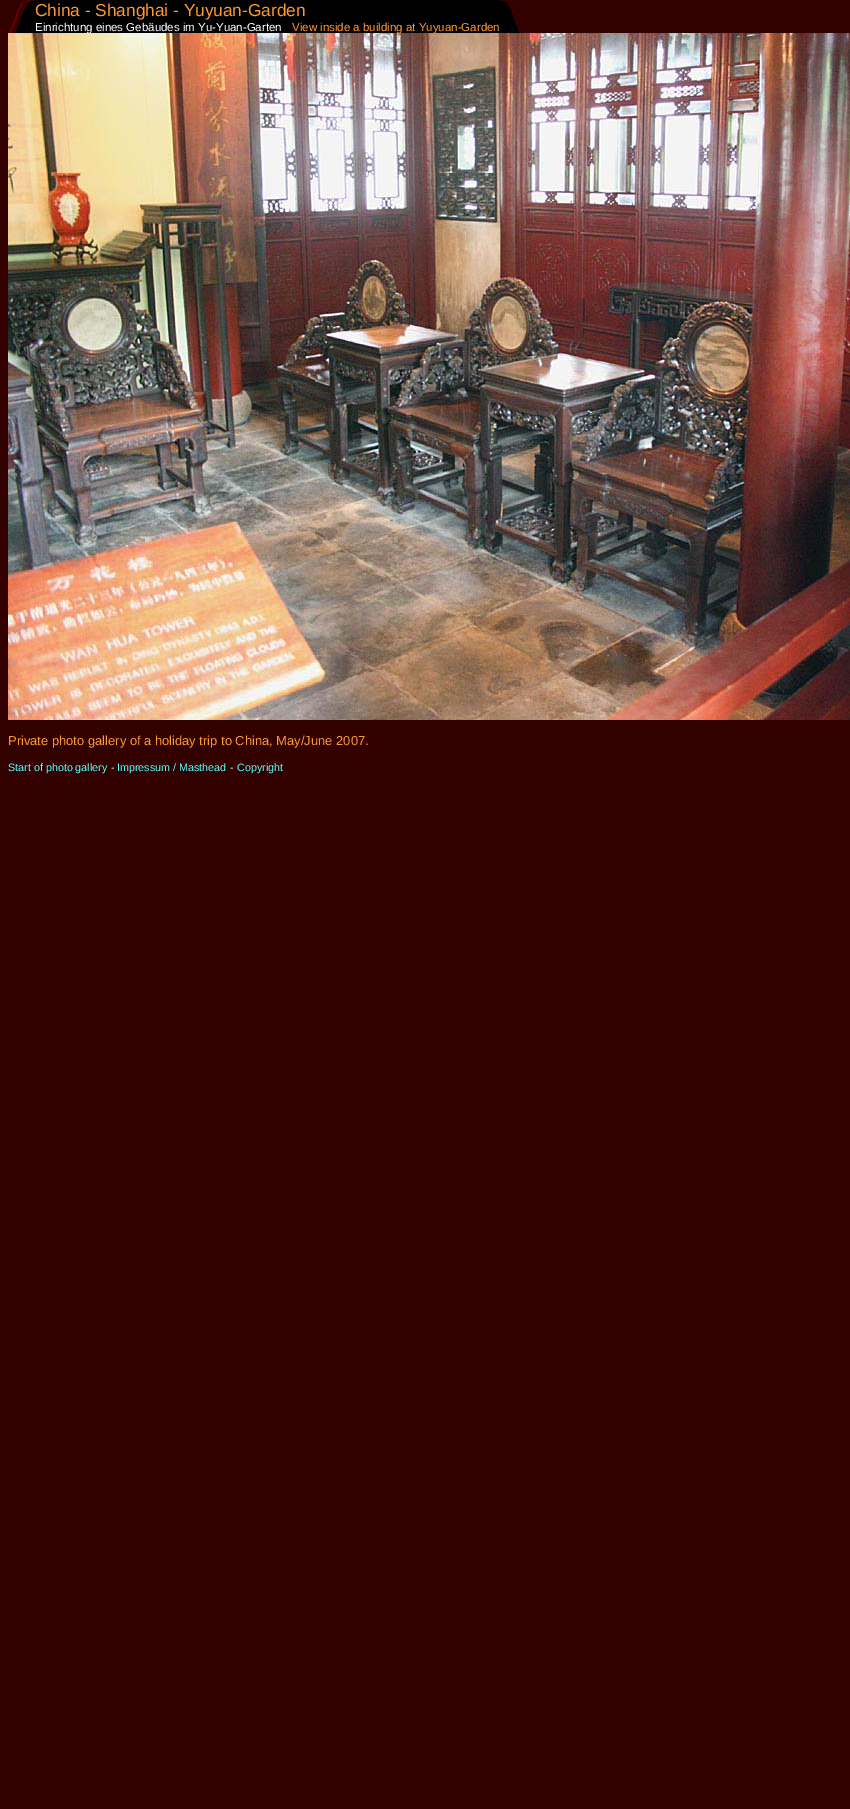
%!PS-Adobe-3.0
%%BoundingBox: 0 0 850 1809
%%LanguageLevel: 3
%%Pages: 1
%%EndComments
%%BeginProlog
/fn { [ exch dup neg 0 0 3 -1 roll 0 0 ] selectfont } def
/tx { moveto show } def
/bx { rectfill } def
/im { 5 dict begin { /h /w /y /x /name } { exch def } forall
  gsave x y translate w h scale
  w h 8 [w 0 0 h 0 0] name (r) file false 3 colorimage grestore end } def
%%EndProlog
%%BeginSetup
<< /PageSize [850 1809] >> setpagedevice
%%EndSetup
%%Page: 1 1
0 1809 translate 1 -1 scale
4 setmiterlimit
0.2 0 0 setrgbcolor
0 0 850 1809 bx
0 setgray
15 0 505 33 bx
(image0.raw) 8 0 26 33 im
/LiberationSans-Regular 17.25 fn
1 0.6 0.2 setrgbcolor
(China - Shanghai - Yuyuan-Garden) 35 16 tx
/LiberationSans-Regular 11.5 fn
1 setgray
(Einrichtung eines Gebäudes im Yu-Yuan-Garten) 35 31 tx
1 0.6 0.2 setrgbcolor
(View inside a building at Yuyuan-Garden) 292 31 tx
(image1.raw) 501 0 26 33 im
(image2.raw) 8 33 842 687 im
/LiberationSans-Regular 12.95 fn
(Private photo gallery of a holiday trip to China, May/June 2007.) 8 745 tx
/LiberationSans-Regular 10.75 fn
0.333 1 1 setrgbcolor
(Start of photo gallery) 8 771 tx
1 setgray
(-) 111 771 tx
0.333 1 1 setrgbcolor
(Impressum / Masthead) 117 771 tx
1 setgray
(-) 230 771 tx
0.333 1 1 setrgbcolor
(Copyright) 237 771 tx
showpage
%%EOF
